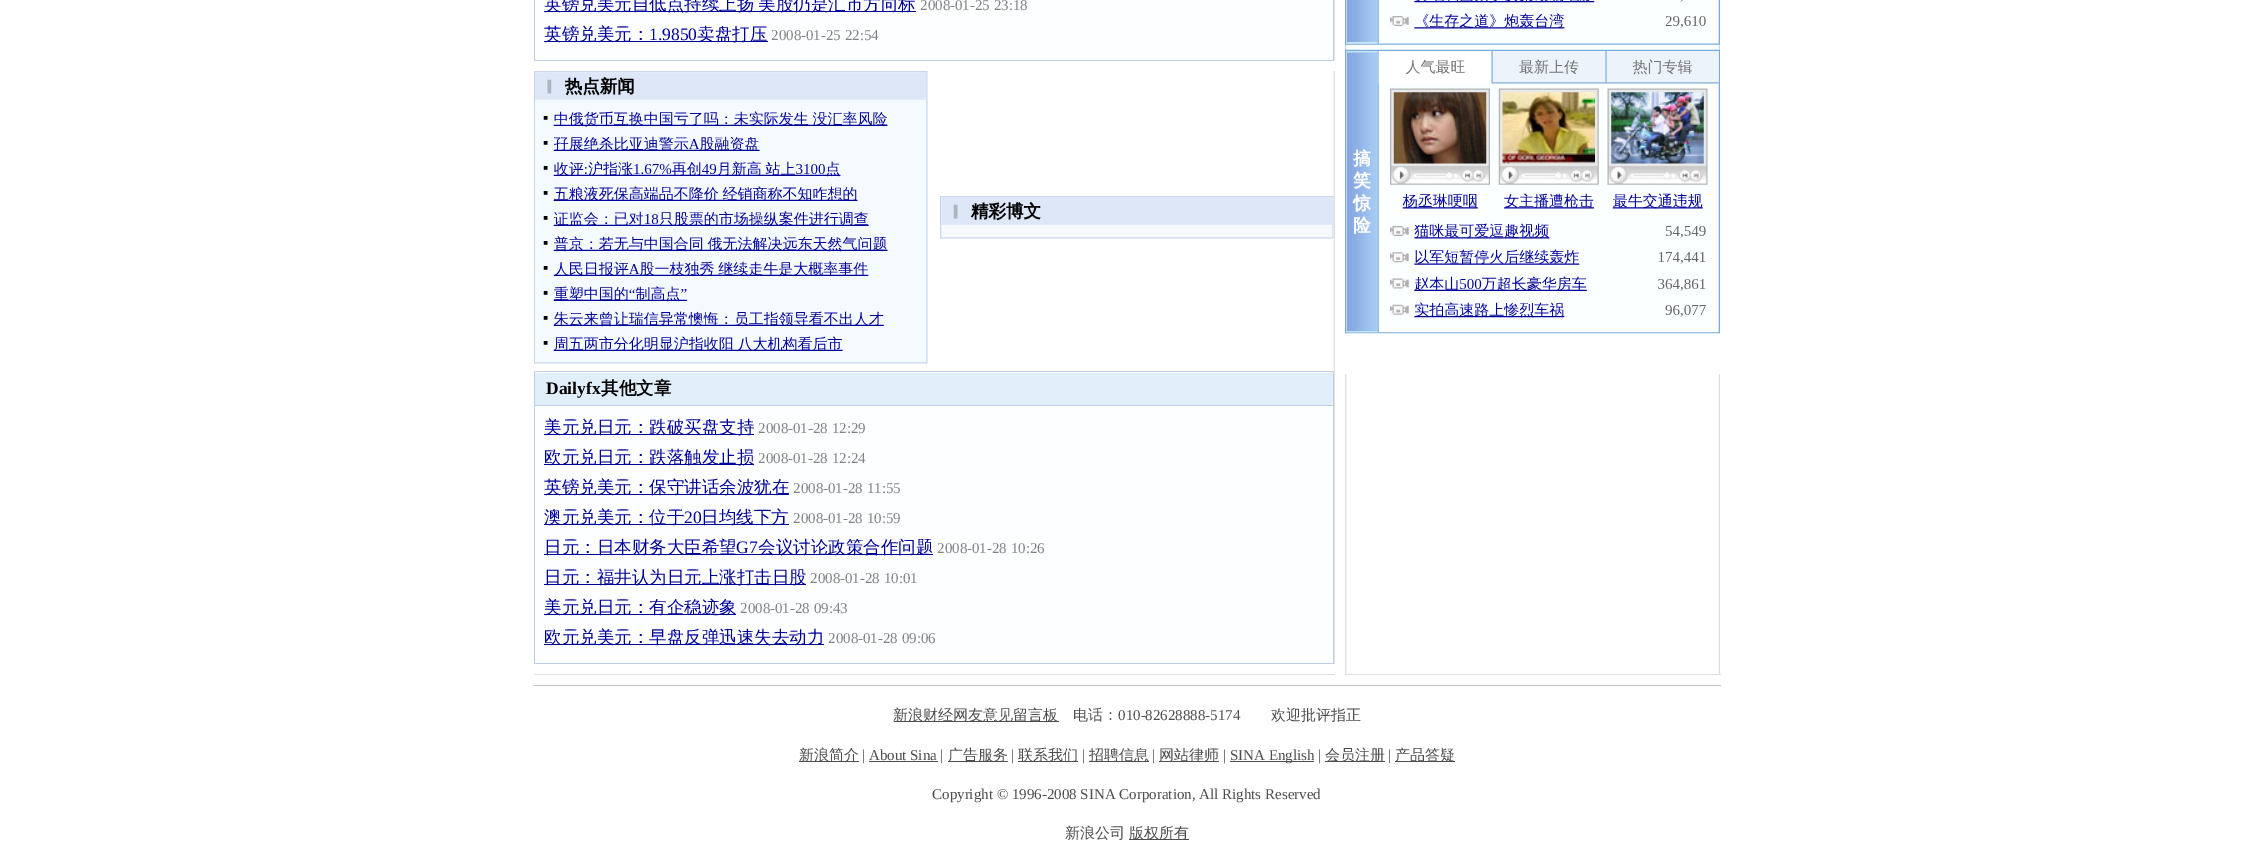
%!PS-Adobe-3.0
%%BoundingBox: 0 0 2253 862
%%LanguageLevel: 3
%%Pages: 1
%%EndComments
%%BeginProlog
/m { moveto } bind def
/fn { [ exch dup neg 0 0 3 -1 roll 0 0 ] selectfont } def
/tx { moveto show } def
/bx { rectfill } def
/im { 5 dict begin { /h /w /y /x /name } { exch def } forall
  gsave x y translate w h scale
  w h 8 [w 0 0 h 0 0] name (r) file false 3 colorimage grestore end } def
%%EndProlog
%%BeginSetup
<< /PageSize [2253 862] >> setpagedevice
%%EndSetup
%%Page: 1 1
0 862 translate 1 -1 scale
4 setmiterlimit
1 setgray
0 0 2253 862 bx
(image0.raw) 535 0 800 664 im
0.871 0.875 0.871 setrgbcolor
534 674 801 1 bx
0.745 0.808 0.902 setrgbcolor
534 0 1 61 bx
0.988 0.996 1 setrgbcolor
535 0 798 60 bx
0.745 0.808 0.902 setrgbcolor
1333 0 1 61 bx
535 60 799 1 bx
0 0 0.6 setrgbcolor
544 11 372 1 bx
/WenQuanYiZenHei-Medium 17.5 fn
544 10 m -1 0 32 (英镑兑美元自低点持续上扬 美股仍是汇市方向标) widthshow
/LiberationSerif-Regular 15 fn
0.514 setgray
(2008-01-25 23:18) 920 10 tx
0 0 0.6 setrgbcolor
544 41 224 1 bx
/WenQuanYiZenHei-Medium 17.5 fn
(英镑兑美元：) 544 40 tx
/LiberationSerif-Regular 17.5 fn
(1.9850) 649 40 tx
/WenQuanYiZenHei-Medium 17.5 fn
(卖盘打压) 697 40 tx
/LiberationSerif-Regular 15 fn
0.514 setgray
(2008-01-25 22:54) 771 40 tx
1 setgray
535 61 800 10 bx
(image1.raw) 534 71 800 300 im
0.745 0.808 0.902 setrgbcolor
534 371 800 1 bx
534 371 1 293 bx
0.882 0.937 0.98 setrgbcolor
535 373 798 32 bx
0.745 0.808 0.902 setrgbcolor
1333 373 1 291 bx
535 405 799 1 bx
/LiberationSerif-Bold 17.5 fn
0 setgray
(Dailyfx) 546 394 tx
/WenQuanYiZenHei-Bold 17.5 fn
(其他文章) 601 394 tx
0.988 0.996 1 setrgbcolor
535 406 798 257 bx
0.745 0.808 0.902 setrgbcolor
535 663 799 1 bx
0 0 0.6 setrgbcolor
544 434 210 1 bx
/WenQuanYiZenHei-Medium 17.5 fn
(美元兑日元：跌破买盘支持) 544 433 tx
/LiberationSerif-Regular 15 fn
0.514 setgray
(2008-01-28 12:29) 758 433 tx
0 0 0.6 setrgbcolor
544 464 210 1 bx
/WenQuanYiZenHei-Medium 17.5 fn
(欧元兑日元：跌落触发止损) 544 463 tx
/LiberationSerif-Regular 15 fn
0.514 setgray
(2008-01-28 12:24) 758 463 tx
0 0 0.6 setrgbcolor
544 494 245 1 bx
/WenQuanYiZenHei-Medium 17.5 fn
(英镑兑美元：保守讲话余波犹在) 544 493 tx
/LiberationSerif-Regular 15 fn
0.514 setgray
(2008-01-28 11:55) 793 493 tx
0 0 0.6 setrgbcolor
544 524 245 1 bx
/WenQuanYiZenHei-Medium 17.5 fn
(澳元兑美元：位于) 544 523 tx
/LiberationSerif-Regular 17.5 fn
(20) 684 523 tx
/WenQuanYiZenHei-Medium 17.5 fn
(日均线下方) 701 523 tx
/LiberationSerif-Regular 15 fn
0.514 setgray
(2008-01-28 10:59) 793 523 tx
0 0 0.6 setrgbcolor
544 554 389 1 bx
/WenQuanYiZenHei-Medium 17.5 fn
(日元：日本财务大臣希望) 544 553 tx
/LiberationSerif-Regular 17.5 fn
(G7) 736 553 tx
/WenQuanYiZenHei-Medium 17.5 fn
(会议讨论政策合作问题) 758 553 tx
/LiberationSerif-Regular 15 fn
0.514 setgray
(2008-01-28 10:26) 937 553 tx
0 0 0.6 setrgbcolor
544 584 262 1 bx
/WenQuanYiZenHei-Medium 17.5 fn
(日元：福井认为日元上涨打击日股) 544 583 tx
/LiberationSerif-Regular 15 fn
0.514 setgray
(2008-01-28 10:01) 810 583 tx
0 0 0.6 setrgbcolor
544 614 192 1 bx
/WenQuanYiZenHei-Medium 17.5 fn
(美元兑日元：有企稳迹象) 544 613 tx
/LiberationSerif-Regular 15 fn
0.514 setgray
(2008-01-28 09:43) 740 613 tx
0 0 0.6 setrgbcolor
544 644 280 1 bx
/WenQuanYiZenHei-Medium 17.5 fn
(欧元兑美元：早盘反弹迅速失去动力) 544 643 tx
/LiberationSerif-Regular 15 fn
0.514 setgray
(2008-01-28 09:06) 828 643 tx
(image2.raw) 1345 374 375 300 im
0.871 0.875 0.871 setrgbcolor
1345 674 376 1 bx
(image3.raw) 1345 0 375 334 im
0.784 0.776 0.773 setrgbcolor
534 685 1187 1 bx
0.302 setgray
894 721 165 1 bx
/WenQuanYiZenHei-Medium 15 fn
(新浪财经网友意见留言板) 893 720 tx
(电话：) 1073 720 tx
/LiberationSerif-Regular 15 fn
(010-82628888-5174) 1118 720 tx
/WenQuanYiZenHei-Medium 15 fn
(欢迎批评指正) 1271 720 tx
799 761 60 1 bx
(新浪简介) 799 760 tx
/LiberationSerif-Regular 15 fn
(| About Sina |) 862 760 tx
948 761 60 1 bx
/WenQuanYiZenHei-Medium 15 fn
(广告服务) 948 760 tx
/LiberationSerif-Regular 15 fn
(|) 1011 760 tx
1018 761 60 1 bx
/WenQuanYiZenHei-Medium 15 fn
(联系我们) 1018 760 tx
/LiberationSerif-Regular 15 fn
(|) 1082 760 tx
1089 761 60 1 bx
/WenQuanYiZenHei-Medium 15 fn
(招聘信息) 1089 760 tx
/LiberationSerif-Regular 15 fn
(|) 1152 760 tx
1159 761 60 1 bx
/WenQuanYiZenHei-Medium 15 fn
(网站律师) 1159 760 tx
/LiberationSerif-Regular 15 fn
(|) 1223 760 tx
1230 761 84 1 bx
(SINA English |) 1230 760 tx
1325 761 60 1 bx
/WenQuanYiZenHei-Medium 15 fn
(会员注册) 1325 760 tx
/LiberationSerif-Regular 15 fn
(|) 1388 760 tx
1395 761 60 1 bx
/WenQuanYiZenHei-Medium 15 fn
(产品答疑) 1395 760 tx
869 761 69 1 bx
/LiberationSerif-Regular 15 fn
(Copyright © 1996-2008 SINA Corporation, All Rights Reserved) 932 799 tx
/WenQuanYiZenHei-Medium 15 fn
(新浪公司) 1065 838 tx
1129 839 60 1 bx
(版权所有) 1129 838 tx
showpage
%%EOF
